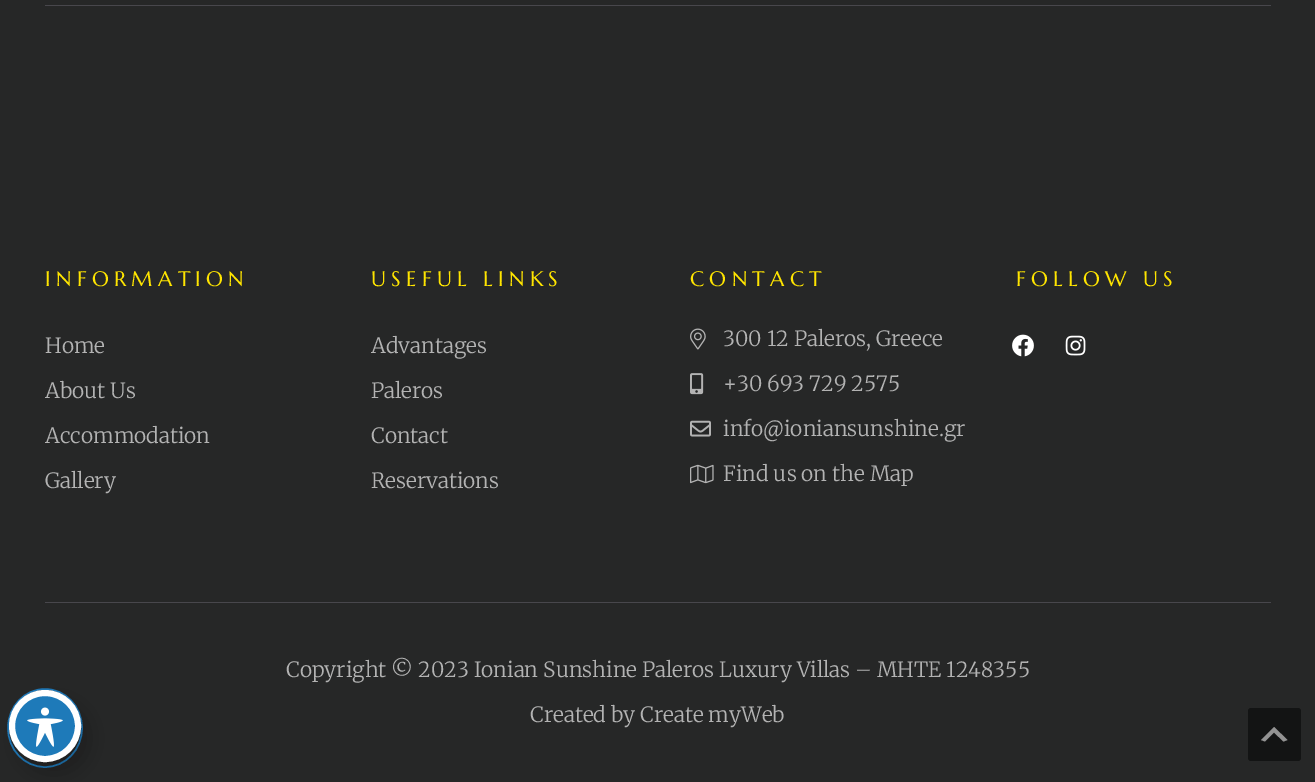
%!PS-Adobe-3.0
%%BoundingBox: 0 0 1315 782
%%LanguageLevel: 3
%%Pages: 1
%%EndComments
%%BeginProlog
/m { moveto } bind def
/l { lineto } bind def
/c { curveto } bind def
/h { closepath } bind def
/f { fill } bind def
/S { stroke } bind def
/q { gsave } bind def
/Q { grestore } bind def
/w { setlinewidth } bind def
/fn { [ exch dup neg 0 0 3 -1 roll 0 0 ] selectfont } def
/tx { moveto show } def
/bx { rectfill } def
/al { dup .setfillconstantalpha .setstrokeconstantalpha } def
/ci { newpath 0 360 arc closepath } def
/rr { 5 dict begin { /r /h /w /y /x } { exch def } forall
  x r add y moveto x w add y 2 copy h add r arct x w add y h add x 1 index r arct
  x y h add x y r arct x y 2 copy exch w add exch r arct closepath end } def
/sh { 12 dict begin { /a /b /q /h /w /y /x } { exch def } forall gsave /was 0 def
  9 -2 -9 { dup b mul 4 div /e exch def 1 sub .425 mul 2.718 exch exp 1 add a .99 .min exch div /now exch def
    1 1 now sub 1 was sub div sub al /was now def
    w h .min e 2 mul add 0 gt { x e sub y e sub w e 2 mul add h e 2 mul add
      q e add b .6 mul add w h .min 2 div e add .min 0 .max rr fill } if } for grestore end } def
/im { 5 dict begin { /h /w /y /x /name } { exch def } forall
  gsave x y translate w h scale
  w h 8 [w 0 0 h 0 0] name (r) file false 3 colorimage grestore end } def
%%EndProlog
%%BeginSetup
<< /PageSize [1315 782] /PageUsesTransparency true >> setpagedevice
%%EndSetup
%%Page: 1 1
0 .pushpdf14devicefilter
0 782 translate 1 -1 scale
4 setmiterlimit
0.149 0.153 0.153 setrgbcolor
0 0 1315 782 bx
0.282 0.278 0.298 setrgbcolor
45 5 1226 1 bx
/Marcellus-Regular 21 fn
1 0.898 0 setrgbcolor
45 286 m 5.25 0 (INFORMATION) ashow
/Merriweather-Light 21 fn
0.702 setgray
(Home) 45 353 tx
(About Us) 45 398 tx
(Accommodation) 45 443 tx
(Gallery) 45 488 tx
/Marcellus-Regular 21 fn
1 0.898 0 setrgbcolor
371 286 m 5.25 0 (USEFUL LINKS) ashow
/Merriweather-Light 21 fn
0.702 setgray
(Advantages) 371 353 tx
(Paleros) 371 398 tx
(Contact) 371 443 tx
(Reservations) 371 488 tx
/Marcellus-Regular 21 fn
1 0.898 0 setrgbcolor
690 286 m 5.25 0 (CONTACT) ashow
(image0.raw) 690 328 16 22 im
/Merriweather-Light 21 fn
0.702 setgray
(300 12 Paleros, Greece) 723 346 tx
(image1.raw) 690 373 14 22 im
(+30 693 729 2575) 723 391 tx
(image2.raw) 690 420 21 17 im
(info@ioniansunshine.gr) 723 436 tx
(image3.raw) 690 464 24 20 im
(Find us on the Map) 723 481 tx
/Marcellus-Regular 21 fn
1 0.898 0 setrgbcolor
1016 286 m 5.25 0 (FOLLOW US) ashow
(image4.raw) 1012 334 22 23 im
(image5.raw) 1065 335 21 21 im
0.282 0.278 0.298 setrgbcolor
45 602 1226 1 bx
/Merriweather-Light 21 fn
0.702 setgray
(Copyright © 2023 Ionian Sunshine Paleros Luxury Villas – MHTE 1248355) 286 677 tx
(Created by Create myWeb) 530 722 tx
0.118 0.478 0.725 setrgbcolor
1.5 w
45 689 m 65.5 689 82 706.5 82 728 c 82 750 65.5 767 45 767 c 24.5 767 8 750 8 728 c 8 706.5 24.5 689 45 689 c h S
0 setgray
18 702 72 72 36 12 0.2 sh
0.118 0.478 0.725 setrgbcolor
45 726 33 ci q f Q
1 setgray
6 w
S
(image6.raw) 27 707 36 40 im
0.075 0.078 0.078 setrgbcolor
1248 708 53 53 3 rr f
0.576 setgray
1283.5 741.5 m 1274 732.5 l 1265 741.5 l 1261 740 l 1274 727 l 1287.5 740 l h f
.poppdf14devicefilter showpage
%%EOF
